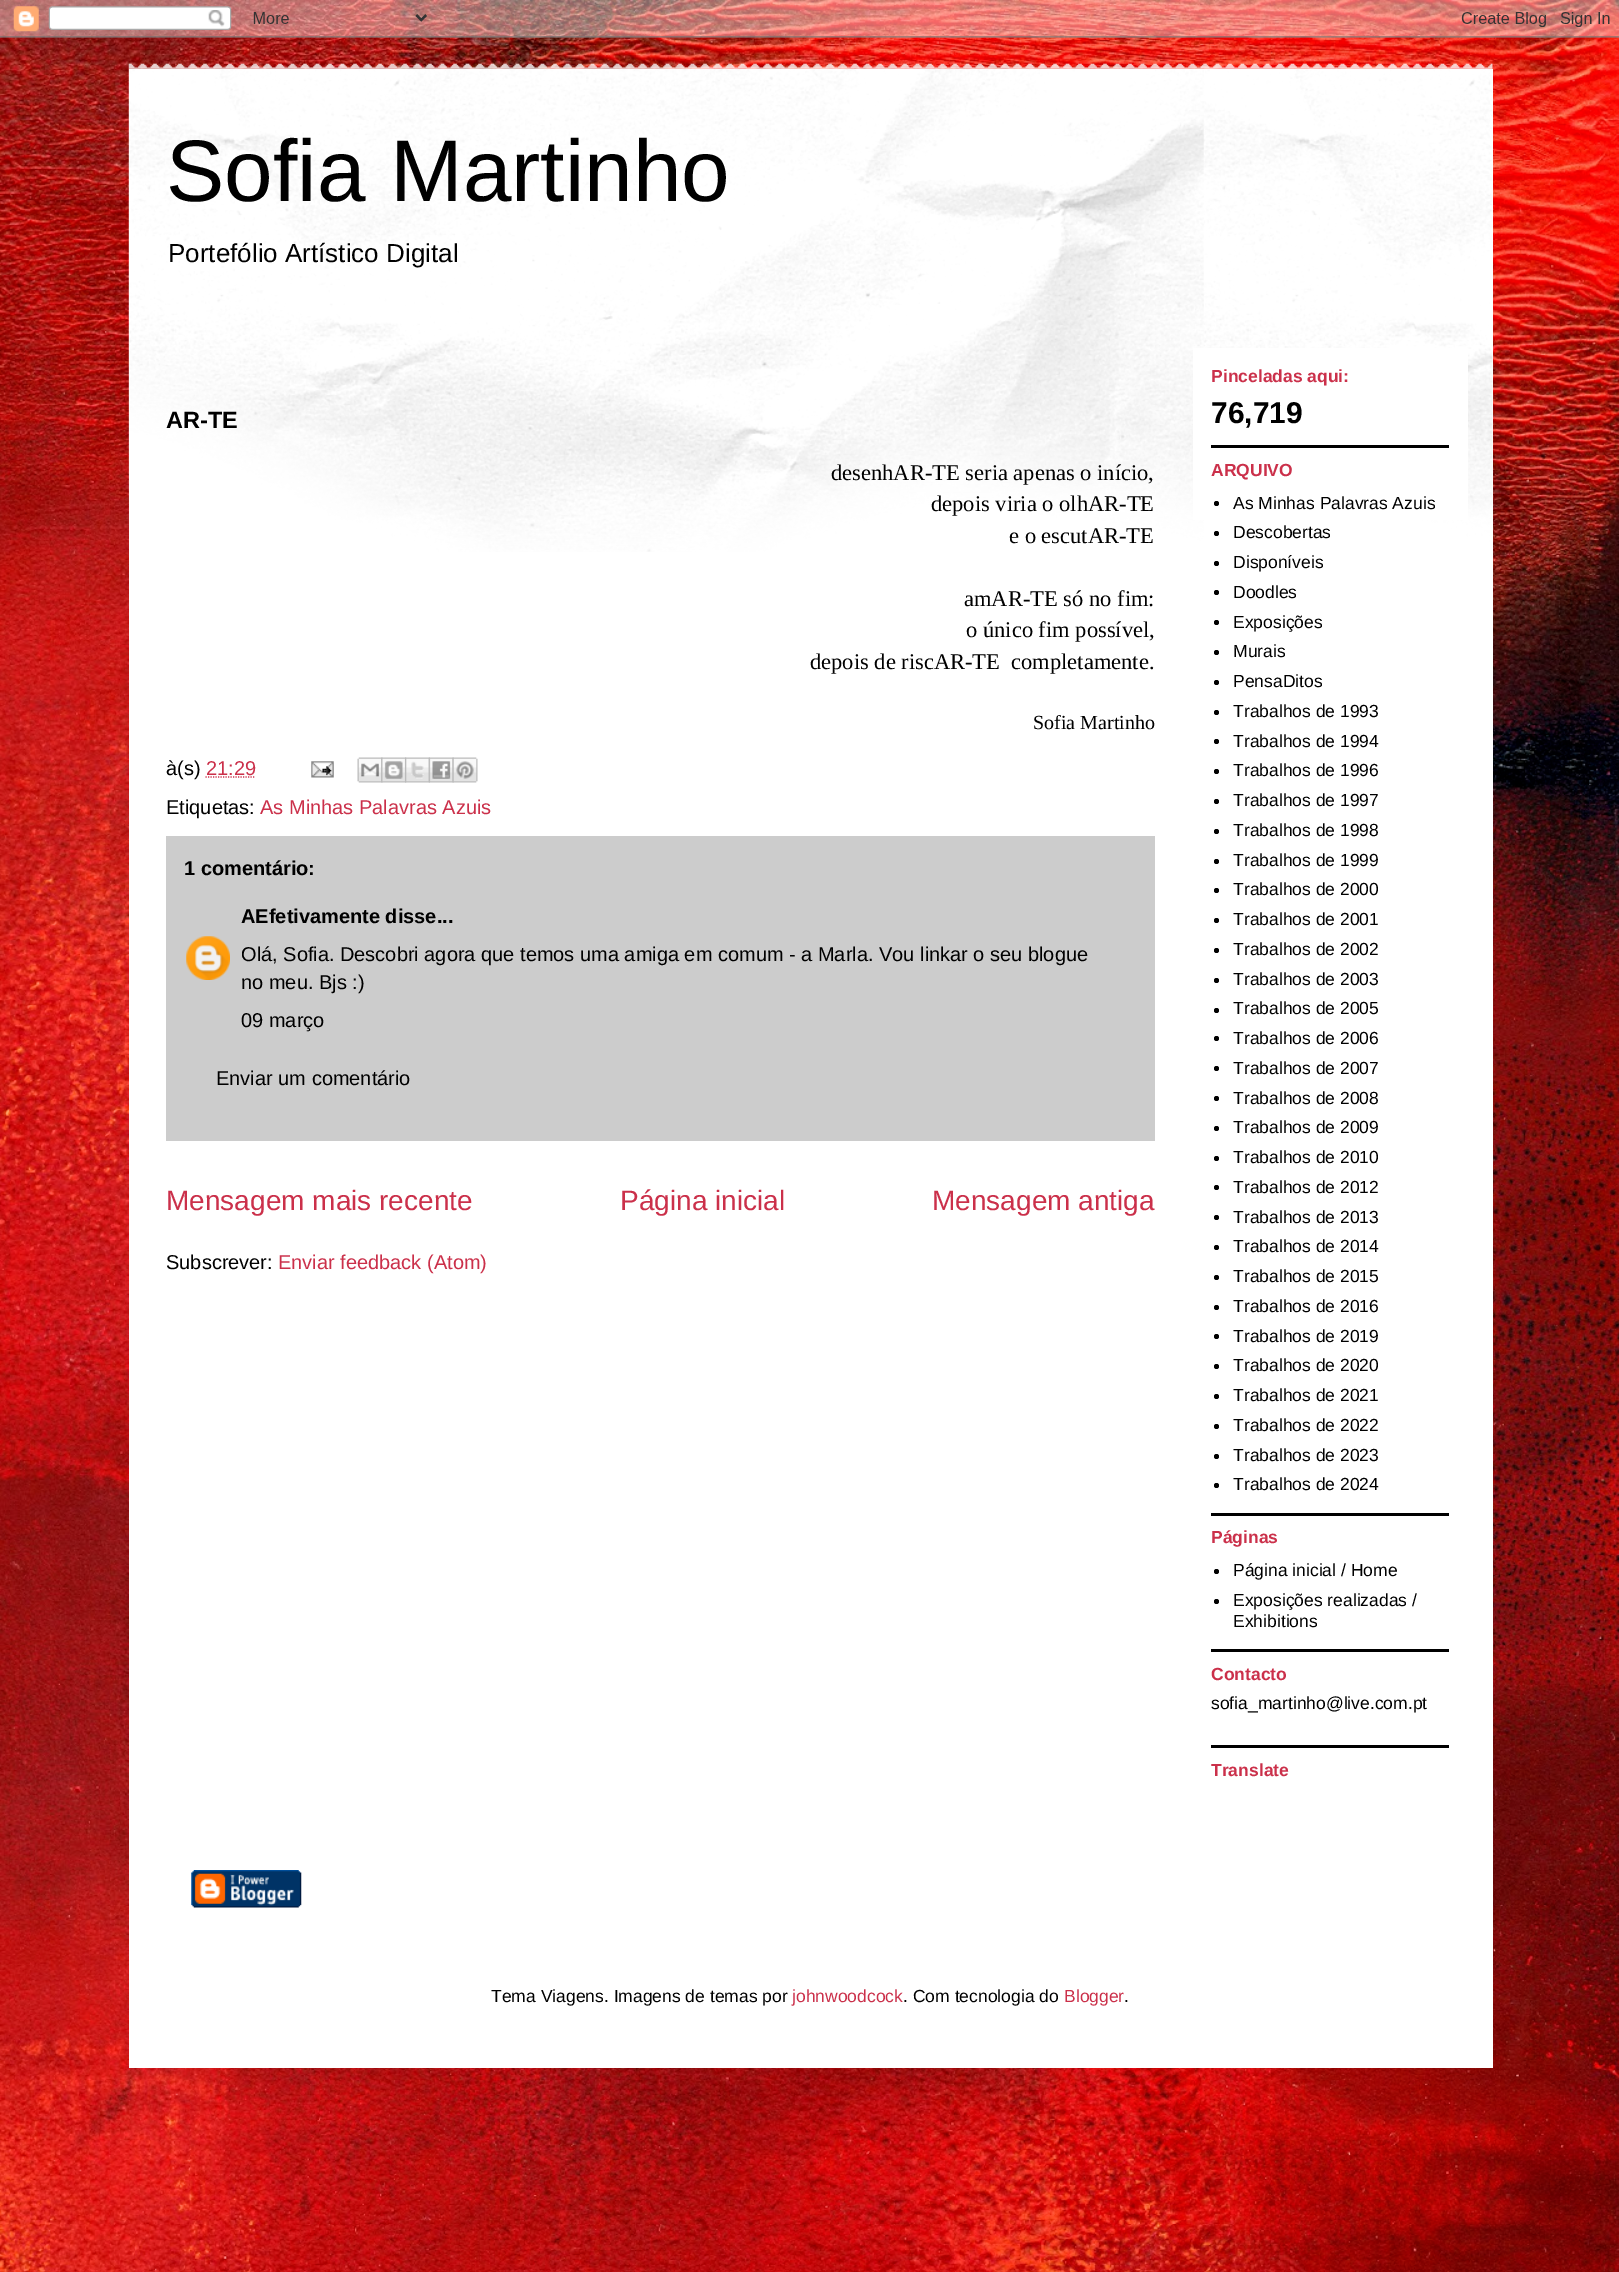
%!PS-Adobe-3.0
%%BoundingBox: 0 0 1619 2272
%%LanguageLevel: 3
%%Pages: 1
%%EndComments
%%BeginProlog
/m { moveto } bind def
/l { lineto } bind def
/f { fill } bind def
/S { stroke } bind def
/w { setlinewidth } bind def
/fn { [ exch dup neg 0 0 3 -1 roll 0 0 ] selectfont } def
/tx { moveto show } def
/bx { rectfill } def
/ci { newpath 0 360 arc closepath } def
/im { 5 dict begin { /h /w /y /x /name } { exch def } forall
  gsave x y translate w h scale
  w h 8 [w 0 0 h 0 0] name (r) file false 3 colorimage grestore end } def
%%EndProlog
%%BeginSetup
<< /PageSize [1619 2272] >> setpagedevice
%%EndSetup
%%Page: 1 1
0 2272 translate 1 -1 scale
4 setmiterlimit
1 setgray
0 0 1619 2272 bx
(image0.raw) 0 0 1619 2272 im
(image1.raw) 0 0 1619 38 im
(image2.raw) 128 63 1365 6 im
129 69 1364 1999 bx
(image3.raw) 128 68 1365 484 im
/LiberationSans-Regular 87.5 fn
0 setgray
(Sofia Martinho) 166 201 tx
/LiberationSans-Regular 26 fn
(Portefólio Artístico Digital) 168 262 tx
1 setgray
1193 348 275 172 bx
/LiberationSans-Bold 23.5 fn
0 setgray
(AR-TE) 166 428 tx
/LiberationSerif-Regular 22.5 fn
(desenhAR-TE seria apenas o início,) 831 480 tx
(depois viria o olhAR-TE) 931 511 tx
(e o escutAR-TE) 1009 543 tx
(amAR-TE só no fim:) 964 606 tx
(o único fim possível,) 966 637 tx
(depois de riscAR-TE  completamente.) 810 669 tx
/LiberationSerif-Regular 20 fn
(Sofia Martinho) 1033 729 tx
/LiberationSans-Regular 20 fn
(à\(s\)) 166 775 tx
0.796 0.188 0.29 setrgbcolor
(21:29) 206 775 tx
1.2 w
[1.25 1.25] 0 setdash
205.5 777 m 255.5 777 l S
(image4.raw) 311 761 23 17 im
(image5.raw) 357 757 26 26 im
(image6.raw) 381 757 26 26 im
(image7.raw) 405 757 25 26 im
(image8.raw) 428 757 26 26 im
(image9.raw) 452 757 26 26 im
0 setgray
(Etiquetas:) 166 814 tx
0.796 0.188 0.29 setrgbcolor
(As Minhas Palavras Azuis) 260 814 tx
0.8 setgray
166 836 989 305 bx
/LiberationSans-Bold 20 fn
0 setgray
(1 comentário:) 184 875 tx
(AEfetivamente disse...) 241 923 tx
(image10.raw) 186 936 44 44 im
/LiberationSans-Regular 20 fn
(Olá, Sofia. Descobri agora que temos uma amiga em comum - a Marla. Vou linkar o seu blogue) 241 961 tx
(no meu. Bjs :\)) 241 989 tx
(09 março) 241 1027 tx
(Enviar um comentário) 216 1085 tx
/LiberationSans-Regular 28 fn
0.796 0.188 0.29 setrgbcolor
(Mensagem mais recente) 166 1210 tx
(Página inicial) 620 1210 tx
(Mensagem antiga) 932 1210 tx
/LiberationSans-Regular 20 fn
0 setgray
(Subscrever:) 166 1269 tx
0.796 0.188 0.29 setrgbcolor
(Enviar feedback \(Atom\)) 278 1269 tx
0 setgray
1211 445 238 3 bx
/LiberationSans-Bold 17.5 fn
0.796 0.188 0.29 setrgbcolor
(Pinceladas aqui:) 1211 382 tx
/LiberationSans-Bold 30 fn
0 setgray
(76,719) 1211 423 tx
1211 1513 238 3 bx
/LiberationSans-Bold 17.5 fn
0.796 0.188 0.29 setrgbcolor
(ARQUIVO) 1211 476 tx
0 setgray
1216.5 503.5 2.5 ci f
/LiberationSans-Regular 17.5 fn
(As Minhas Palavras Azuis) 1233 509 tx
1216.5 533.5 2.5 ci f
(Descobertas) 1233 538 tx
1216.5 563.5 2.5 ci f
(Disponíveis) 1233 568 tx
1216.5 592.5 2.5 ci f
(Doodles) 1233 598 tx
1216.5 622.5 2.5 ci f
(Exposições) 1233 628 tx
1216.5 652.5 2.5 ci f
(Murais) 1233 657 tx
1216.5 682.5 2.5 ci f
(PensaDitos) 1233 687 tx
1216.5 712.5 2.5 ci f
(Trabalhos de 1993) 1233 717 tx
1216.5 741.5 2.5 ci f
(Trabalhos de 1994) 1233 747 tx
1216.5 771.5 2.5 ci f
(Trabalhos de 1996) 1233 776 tx
1216.5 801.5 2.5 ci f
(Trabalhos de 1997) 1233 806 tx
1216.5 831.5 2.5 ci f
(Trabalhos de 1998) 1233 836 tx
1216.5 861.5 2.5 ci f
(Trabalhos de 1999) 1233 866 tx
1216.5 890.5 2.5 ci f
(Trabalhos de 2000) 1233 895 tx
1216.5 920.5 2.5 ci f
(Trabalhos de 2001) 1233 925 tx
1216.5 950.5 2.5 ci f
(Trabalhos de 2002) 1233 955 tx
1216.5 980.5 2.5 ci f
(Trabalhos de 2003) 1233 985 tx
1216.5 1010.5 2.5 ci f
(Trabalhos de 2005) 1233 1014 tx
1216.5 1038.5 2.5 ci f
(Trabalhos de 2006) 1233 1044 tx
1216.5 1068.5 2.5 ci f
(Trabalhos de 2007) 1233 1074 tx
1216.5 1098.5 2.5 ci f
(Trabalhos de 2008) 1233 1104 tx
1216.5 1128.5 2.5 ci f
(Trabalhos de 2009) 1233 1133 tx
1216.5 1158.5 2.5 ci f
(Trabalhos de 2010) 1233 1163 tx
1216.5 1187.5 2.5 ci f
(Trabalhos de 2012) 1233 1193 tx
1216.5 1217.5 2.5 ci f
(Trabalhos de 2013) 1233 1223 tx
1216.5 1247.5 2.5 ci f
(Trabalhos de 2014) 1233 1252 tx
1216.5 1277.5 2.5 ci f
(Trabalhos de 2015) 1233 1282 tx
1216.5 1307.5 2.5 ci f
(Trabalhos de 2016) 1233 1312 tx
1216.5 1336.5 2.5 ci f
(Trabalhos de 2019) 1233 1342 tx
1216.5 1366.5 2.5 ci f
(Trabalhos de 2020) 1233 1371 tx
1216.5 1396.5 2.5 ci f
(Trabalhos de 2021) 1233 1401 tx
1216.5 1426.5 2.5 ci f
(Trabalhos de 2022) 1233 1431 tx
1216.5 1456.5 2.5 ci f
(Trabalhos de 2023) 1233 1461 tx
1216.5 1485.5 2.5 ci f
(Trabalhos de 2024) 1233 1490 tx
1211 1649 238 3 bx
/LiberationSans-Bold 17.5 fn
0.796 0.188 0.29 setrgbcolor
(Páginas) 1211 1543 tx
0 setgray
1216.5 1571.5 2.5 ci f
/LiberationSans-Regular 17.5 fn
(Página inicial / Home) 1233 1576 tx
1216.5 1601.5 2.5 ci f
(Exposições realizadas /) 1233 1606 tx
(Exhibitions) 1233 1627 tx
1211 1745 238 3 bx
/LiberationSans-Bold 17.5 fn
0.796 0.188 0.29 setrgbcolor
(Contacto) 1211 1680 tx
/LiberationSans-Regular 17.5 fn
0 setgray
(sofia_martinho@live.com.pt) 1211 1709 tx
/LiberationSans-Bold 17.5 fn
0.796 0.188 0.29 setrgbcolor
(Translate) 1211 1776 tx
(image11.raw) 191 1870 111 38 im
/LiberationSans-Regular 17.5 fn
0 setgray
(Tema Viagens. Imagens de temas por) 491 2002 tx
0.796 0.188 0.29 setrgbcolor
(johnwoodcock) 792 2002 tx
0 setgray
(. Com tecnologia do) 903 2002 tx
0.796 0.188 0.29 setrgbcolor
(Blogger) 1064 2002 tx
0 setgray
(.) 1124 2002 tx
showpage
%%EOF
